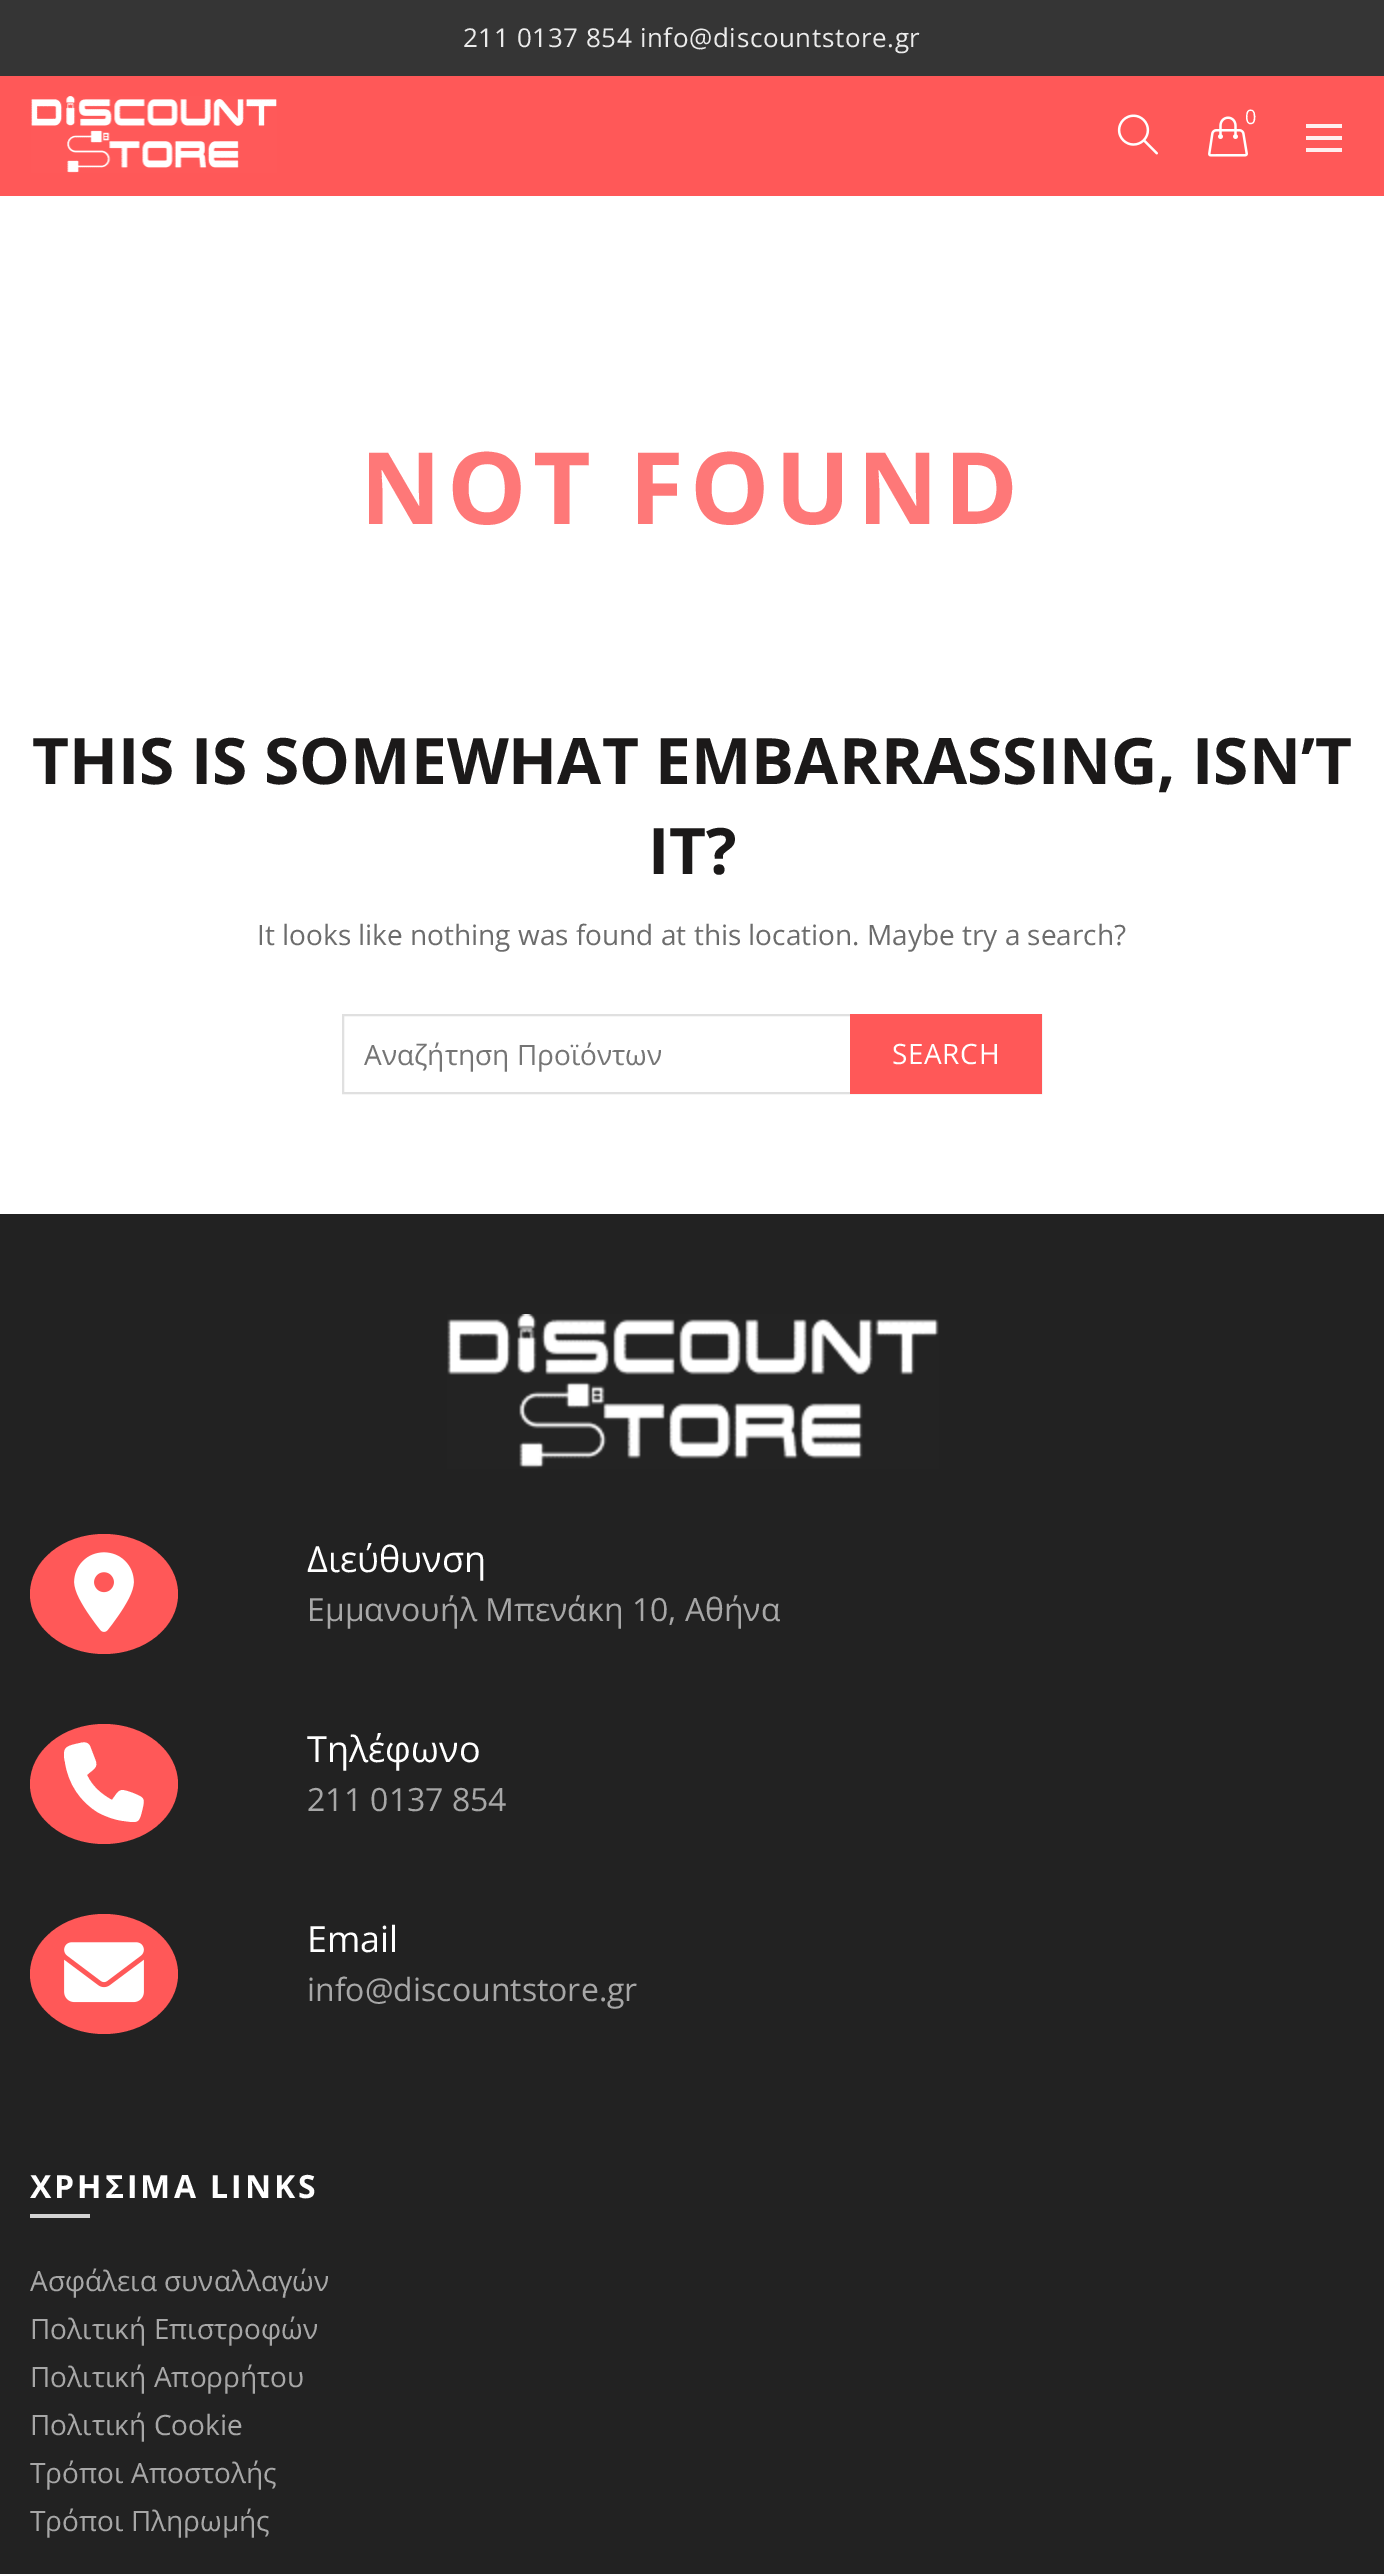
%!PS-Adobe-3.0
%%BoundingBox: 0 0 1384 2574
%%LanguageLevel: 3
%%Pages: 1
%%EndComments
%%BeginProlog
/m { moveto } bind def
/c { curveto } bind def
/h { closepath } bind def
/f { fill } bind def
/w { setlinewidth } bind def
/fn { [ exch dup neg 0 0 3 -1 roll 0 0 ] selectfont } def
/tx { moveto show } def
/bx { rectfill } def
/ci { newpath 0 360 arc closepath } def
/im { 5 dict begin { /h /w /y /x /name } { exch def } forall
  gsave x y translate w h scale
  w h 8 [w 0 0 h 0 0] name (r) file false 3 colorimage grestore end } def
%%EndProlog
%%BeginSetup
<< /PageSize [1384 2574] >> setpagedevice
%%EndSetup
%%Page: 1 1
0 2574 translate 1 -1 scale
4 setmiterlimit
1 setgray
0 0 1384 2574 bx
0.208 setgray
0 0 1384 76 bx
/OpenSans-Regular 26 fn
0.922 setgray
463 47 m 0.6 0 (211 0137 854 info@discountstore.gr) ashow
1 0.345 0.345 setrgbcolor
0 76 1384 120 bx
(image0.raw) 31 96 246 77 im
(image1.raw) 1117 114 41 41 im
(image2.raw) 1208 116 40 41 im
1251 117 15 ci f
/OpenSans-Regular 20 fn
1 setgray
(0) 1245 124 tx
1 0.933 0.933 setrgbcolor
1306 136 36 4 bx
1306 124 36 4 bx
1306 148 36 4 bx
/OpenSans-Bold 100 fn
0.996 0.471 0.471 setrgbcolor
360 524 m 6 0 (NOT FOUND) ashow
/OpenSans-Bold 64 fn
0.106 0.098 0.098 setrgbcolor
(THIS IS SOMEWHAT EMBARRASSING, ISN’T) 32 784 tx
(IT?) 648 874 tx
/OpenSans-Regular 28 fn
0.424 setgray
(It looks like nothing was found at this location. Maybe try a search?) 257 945 tx
0.878 setgray
2 w
343 1015 698 78 rectstroke
0.459 setgray
(Αναζήτηση Προϊόντων) 364 1065 tx
1 0.345 0.345 setrgbcolor
850 1014 192 80 bx
1 setgray
892 1064 m 0.6 0 (SEARCH) ashow
0.133 setgray
0 1214 1384 1360 bx
(image3.raw) 447 1314 492 155 im
1 0.345 0.345 setrgbcolor
104 1534 m 145 1534 178 1561 178 1594 c 178 1627 145 1654 104 1654 c 63 1654 30 1627 30 1594 c 30 1561 63 1534 104 1534 c h f
(image4.raw) 74 1552 60 80 im
/OpenSans-Regular 36 fn
1 setgray
(Διεύθυνση) 307 1572 tx
/OpenSans-Regular 32 fn
0.655 setgray
(Εμμανουήλ Μπενάκη 10, Αθήνα) 307 1621 tx
1 0.345 0.345 setrgbcolor
104 1724 m 145 1724 178 1751 178 1784 c 178 1817 145 1844 104 1844 c 63 1844 30 1817 30 1784 c 30 1751 63 1724 104 1724 c h f
1 setgray
90 1746 m 88 1742 84 1742 80 1743 c 76 1744 69 1745 66 1748 c 63 1751 64 1758 65 1762 c 68 1783 80 1802 99 1813 c 107 1817 115 1820 124 1821 c 138 1823 139 1823 142 1811 c 145 1798 145 1798 133 1793 c 119 1788 120 1789 112 1800 c 101 1794 92 1786 87 1775 c 93 1769 99 1768 95 1759 c h f
/OpenSans-Regular 36 fn
(Τηλέφωνο) 307 1762 tx
/OpenSans-Regular 32 fn
0.655 setgray
(211 0137 854) 307 1811 tx
1 0.345 0.345 setrgbcolor
104 1914 m 145 1914 178 1941 178 1974 c 178 2007 145 2034 104 2034 c 63 2034 30 2007 30 1974 c 30 1941 63 1914 104 1914 c h f
(image5.raw) 64 1942 80 61 im
/OpenSans-Regular 36 fn
1 setgray
(Email) 307 1952 tx
/OpenSans-Regular 32 fn
0.655 setgray
(info@discountstore.gr) 307 2001 tx
/OpenSans-Bold 32 fn
1 setgray
30 2198 m 3 0 (ΧΡΗΣΙΜΑ LINKS) ashow
0.827 setgray
30 2214 60 4 bx
/OpenSans-Regular 28 fn
0.655 setgray
(Ασφάλεια συναλλαγών) 30 2291 tx
(Πολιτική Επιστροφών) 30 2339 tx
(Πολιτική Απορρήτου) 30 2387 tx
(Πολιτική Cookie) 30 2435 tx
(Τρόποι Αποστολής) 30 2483 tx
(Τρόποι Πληρωμής) 30 2531 tx
showpage
%%EOF
